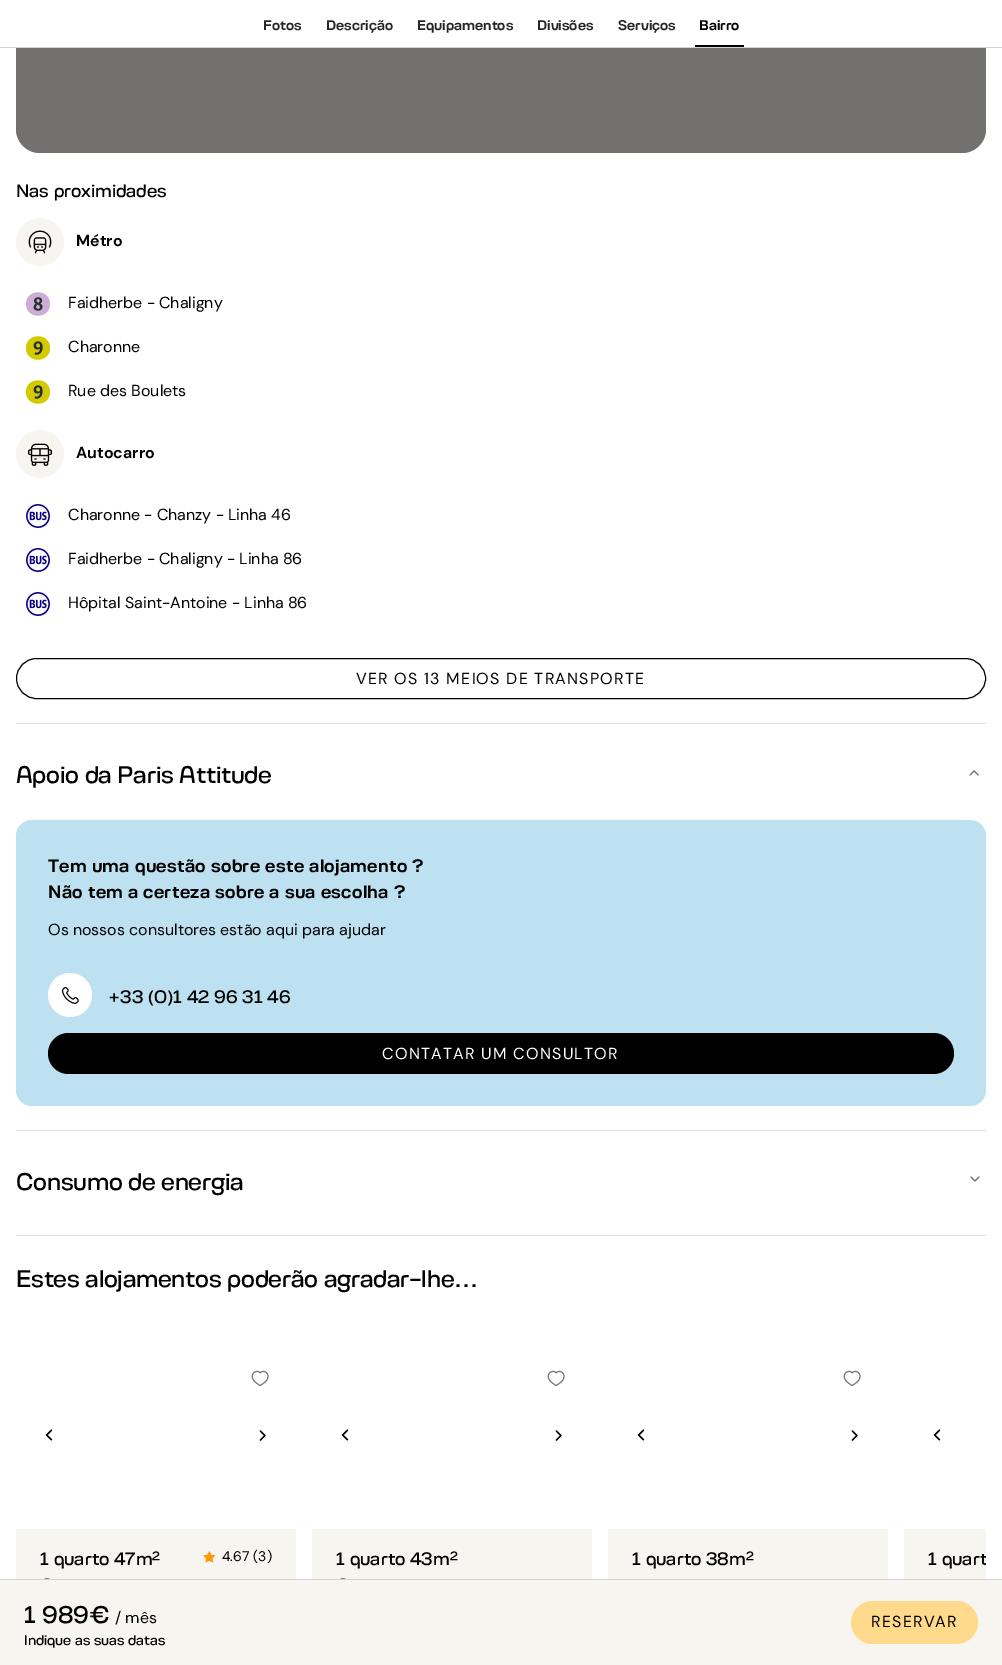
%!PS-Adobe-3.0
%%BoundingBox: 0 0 1002 1665
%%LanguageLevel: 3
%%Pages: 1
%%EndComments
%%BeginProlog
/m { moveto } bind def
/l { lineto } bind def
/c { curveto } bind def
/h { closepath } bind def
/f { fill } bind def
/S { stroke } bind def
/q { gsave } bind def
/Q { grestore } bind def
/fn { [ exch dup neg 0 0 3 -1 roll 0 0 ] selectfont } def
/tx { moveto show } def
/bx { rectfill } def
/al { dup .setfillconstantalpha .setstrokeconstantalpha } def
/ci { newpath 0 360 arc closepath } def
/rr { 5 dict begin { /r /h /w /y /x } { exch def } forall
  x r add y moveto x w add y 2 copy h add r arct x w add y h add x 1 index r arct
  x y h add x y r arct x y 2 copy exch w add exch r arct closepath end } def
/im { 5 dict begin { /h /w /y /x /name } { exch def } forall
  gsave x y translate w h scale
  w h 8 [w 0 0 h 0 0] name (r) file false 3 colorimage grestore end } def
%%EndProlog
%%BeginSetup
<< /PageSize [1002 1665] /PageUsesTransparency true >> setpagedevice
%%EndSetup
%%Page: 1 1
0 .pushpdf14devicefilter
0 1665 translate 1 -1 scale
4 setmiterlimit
1 setgray
0 0 1002 1665 bx
0.898 0.89 0.875 setrgbcolor
16 -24 970 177 24 rr f
0.5 al
0 setgray
16 -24 970 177 24 rr f
1 al
1 setgray
16 0 970 47 bx
0.843 0.831 0.812 setrgbcolor
0 47 1002 1 bx
/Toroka-Medium 14 fn
0.149 setgray
(Fotos) 263 30 tx
(Descrição) 326 30 tx
(Equipamentos) 417 30 tx
(Divisões) 537 30 tx
(Serviços) 618 30 tx
0 setgray
(Bairro) 699 30 tx
695 45 49 2 bx
/Toroka-Regular 18 fn
(Nas proximidades) 16 197 tx
0.965 0.961 0.937 setrgbcolor
40 242 24 ci f
(image0.raw) 28 230 24 24 im
/DMSans-Bold 16 fn
0 setgray
(Métro) 76 246 tx
0.808 0.678 0.824 setrgbcolor
26 304 m 26 319.5 50 319.5 50 304 c 50 288.5 26 288.5 26 304 c h f
(image1.raw) 33 297 10 14 im
/DMSans-Regular 16 fn
0 setgray
(Faidherbe - Chaligny) 68 308 tx
0.835 0.788 0 setrgbcolor
26 348 m 26 363.5 50 363.5 50 348 c 50 332.5 26 332.5 26 348 c h f
(image2.raw) 33 341 10 14 im
0 setgray
(Charonne) 68 352 tx
0.835 0.788 0 setrgbcolor
26 392 m 26 407.5 50 407.5 50 392 c 50 376.5 26 376.5 26 392 c h f
(image2.raw) 33 385 10 14 im
0 setgray
(Rue des Boulets) 68 396 tx
0.965 0.961 0.937 setrgbcolor
40 454 24 ci f
(image3.raw) 28 443 24 23 im
/DMSans-Bold 16 fn
0 setgray
(Autocarro) 76 458 tx
(image4.raw) 26 504 24 24 im
/DMSans-Regular 16 fn
(Charonne - Chanzy - Linha 46) 68 520 tx
(image4.raw) 26 548 24 24 im
(Faidherbe - Chaligny - Linha 86) 68 564 tx
(image4.raw) 26 592 24 24 im
(Hôpital Saint-Antoine - Linha 86) 68 608 tx
16.5 658.5 969 40 20 rr S
356 684 m 1.25 0 (VER OS 13 MEIOS DE TRANSPORTE) ashow
0.878 setgray
16 723 970 1 bx
/Toroka-Regular 24 fn
0 setgray
16 783 m -0.2 0 (Apoio da Paris Attitude) ashow
(image5.raw) 969 770 10 6 im
0.741 0.882 0.945 setrgbcolor
16 820 970 286 16 rr f
/Toroka-Medium 18 fn
0 setgray
48 872 m 0.25 0 (Tem uma questão sobre este alojamento ?) ashow
48 898 m 0.25 0 (Não tem a certeza sobre a sua escolha ?) ashow
/DMSans-Regular 16 fn
(Os nossos consultores estão aqui para ajudar) 48 935 tx
1 setgray
70 995 22 ci f
(image6.raw) 61 987 18 17 im
/Toroka-Regular 18 fn
0 setgray
(+33 \(0\)1 42 96 31 46) 108 1003 tx
48 1033 906 41 20.5 rr f
/DMSans-Regular 16 fn
1 setgray
382 1059 m 1.25 0 (CONTATAR UM CONSULTOR) ashow
0.878 setgray
16 1130 970 1 bx
/Toroka-Regular 24 fn
0 setgray
16 1190 m -0.2 0 (Consumo de energia) ashow
(image7.raw) 970 1176 10 6 im
0.878 setgray
16 1235 970 1 bx
0 setgray
16 1287 m -0.2 0 (Estes alojamentos poderão agradar-lhe...) ashow
0.965 0.961 0.937 setrgbcolor
16 1342 280 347 24 rr f
1 setgray
40 1342 m 272 1342 l 285.5 1342 296 1352.5 296 1366 c 296 1529 l 16 1529 l 16 1366 l 16 1352.5 26.5 1342 40 1342 c h f
(image8.raw) 45 1429 8 12 im
(image9.raw) 259 1430 7 11 im
(image10.raw) 251 1370 18 16 im
/Toroka-Regular 18 fn
0 setgray
(1 quarto 47m²) 40 1565 tx
(image11.raw) 203 1551 13 12 im
/DMSans-Regular 14 fn
(4.67 \(3\)) 222 1561 tx
(image12.raw) 44 1578 6 1 im
0.965 0.961 0.937 setrgbcolor
312 1342 280 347 24 rr f
1 setgray
336 1342 m 568 1342 l 581.5 1342 592 1352.5 592 1366 c 592 1529 l 312 1529 l 312 1366 l 312 1352.5 322.5 1342 336 1342 c h f
(image8.raw) 341 1429 8 12 im
(image9.raw) 555 1430 7 11 im
(image10.raw) 547 1370 18 16 im
/Toroka-Regular 18 fn
0 setgray
(1 quarto 43m²) 336 1565 tx
(image12.raw) 340 1578 6 1 im
0.965 0.961 0.937 setrgbcolor
608 1342 280 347 24 rr f
1 setgray
632 1342 m 864 1342 l 877.5 1342 888 1352.5 888 1366 c 888 1529 l 608 1529 l 608 1366 l 608 1352.5 618.5 1342 632 1342 c h f
(image8.raw) 637 1429 8 12 im
(image9.raw) 851 1430 7 11 im
(image10.raw) 843 1370 18 16 im
0 setgray
(1 quarto 38m²) 632 1565 tx
0.965 0.961 0.937 setrgbcolor
928 1342 m 986 1342 l 986 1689 l 928 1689 l 914.5 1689 904 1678.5 904 1665 c 904 1366 l 904 1352.5 914.5 1342 928 1342 c h f
1 setgray
928 1342 m 986 1342 l 986 1529 l 904 1529 l 904 1366 l 904 1352.5 914.5 1342 928 1342 c h f
(image8.raw) 933 1429 8 12 im
q
904 1529 82 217 rectclip
0 setgray
(1 quart) 928 1565 tx
Q
0.965 0.961 0.937 setrgbcolor
0 1580 1002 85 bx
0.843 0.831 0.812 setrgbcolor
0 1579 1002 1 bx
/Toroka-Regular 24 fn
0 setgray
(1 989€) 24 1623 tx
/DMSans-Regular 16 fn
(/ mês) 115 1623 tx
/Toroka-Regular 14 fn
(Indique as suas datas) 24 1645 tx
1 0.855 0.549 setrgbcolor
851 1601 127 43 21.5 rr f
/DMSans-Regular 16 fn
0 setgray
871 1627 m 1.25 0 (RESERVAR) ashow
.poppdf14devicefilter showpage
%%EOF
